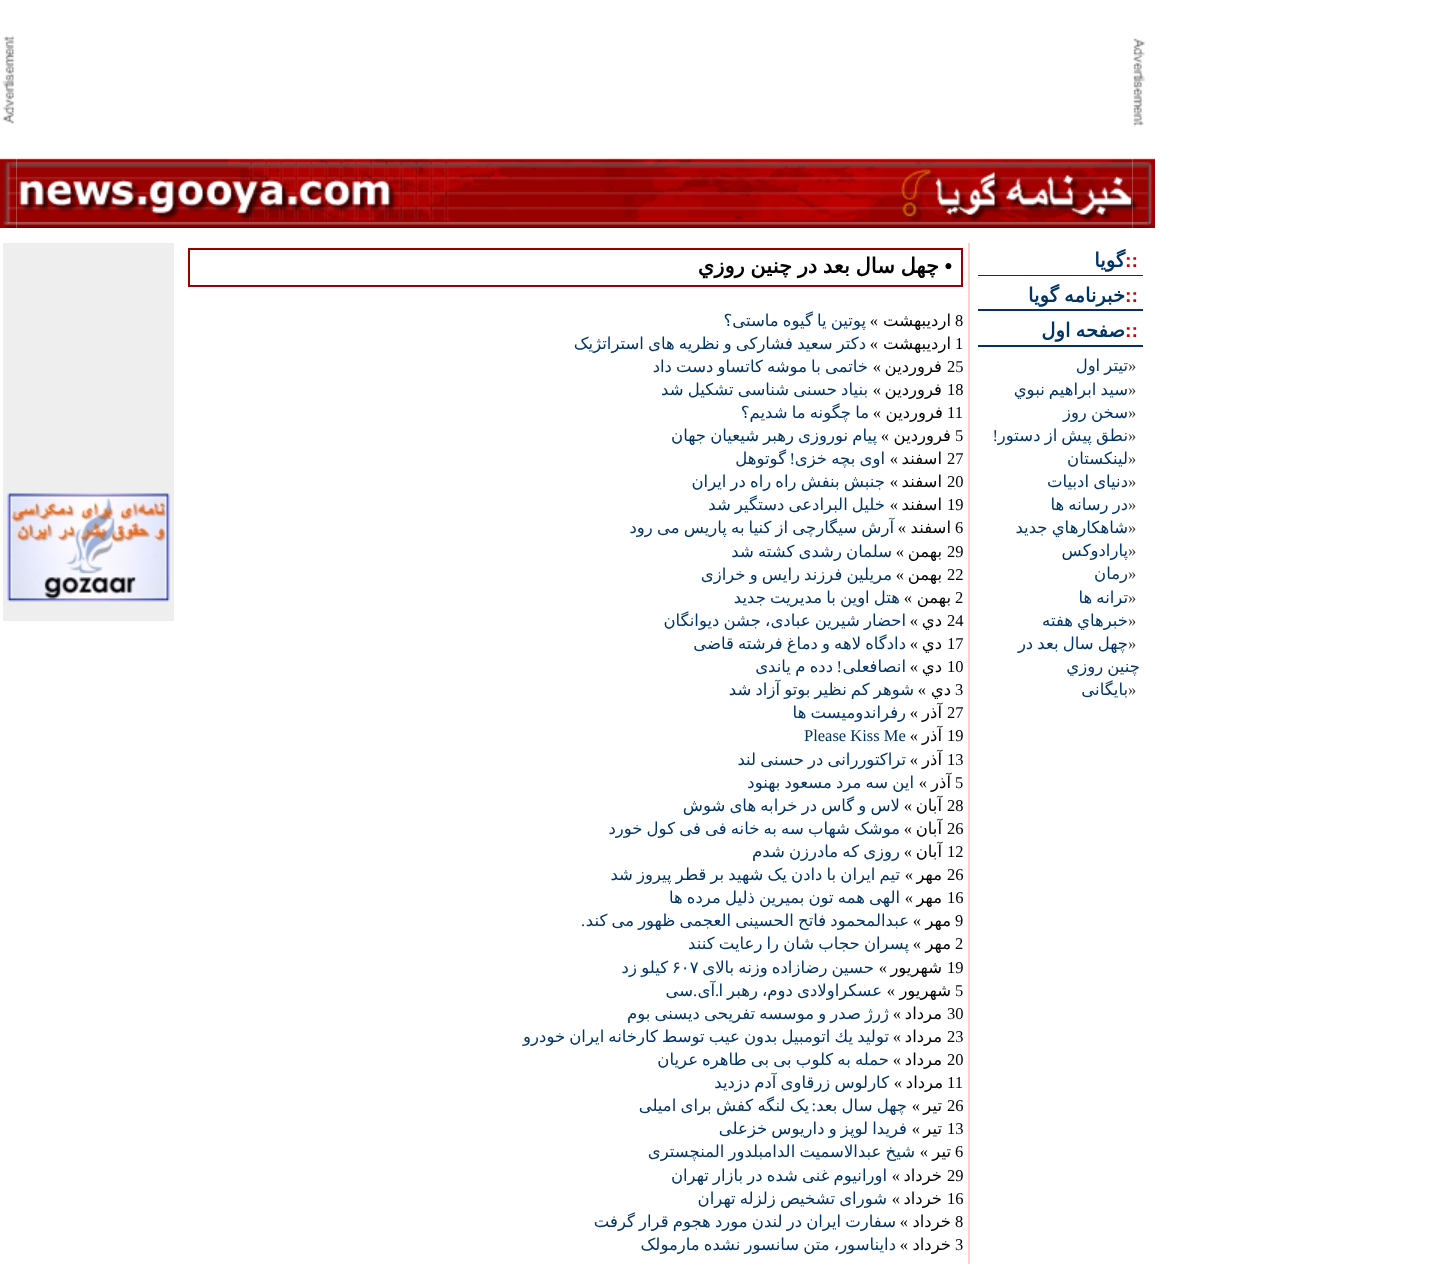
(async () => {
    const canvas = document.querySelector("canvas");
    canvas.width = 1449;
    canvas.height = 1264;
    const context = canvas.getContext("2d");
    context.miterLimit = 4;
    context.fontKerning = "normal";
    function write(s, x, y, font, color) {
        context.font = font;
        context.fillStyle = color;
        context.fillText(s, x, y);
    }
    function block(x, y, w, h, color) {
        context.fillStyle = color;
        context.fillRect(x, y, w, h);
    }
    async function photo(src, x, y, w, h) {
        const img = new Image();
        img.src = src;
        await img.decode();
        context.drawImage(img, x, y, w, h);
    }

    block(0, 0, 1449, 1264, "rgb(255, 255, 255)");
    await photo("media/1.png", 1133, 38, 12, 89);
    await photo("media/2.png", 2, 36, 12, 88);
    await photo("media/5.png", 0, 158, 17, 70);
    await photo("media/4.png", 16, 158, 1117, 70);
    await photo("media/3.png", 1132, 158, 23, 70);
    block(978, 275, 165, 1, "rgb(0, 51, 102)");
    write("::", 1125, 267, "bold 19.5px Liberation Sans", "rgb(204, 0, 0)");
    context.direction = "rtl";
    write("گويا", 1125, 267, "bold 19.5px DejaVu Sans", "rgb(0, 51, 102)");
    block(978, 309, 165, 2, "rgb(0, 51, 102)");
    context.direction = "ltr";
    write("::", 1125, 302, "bold 19.5px Liberation Sans", "rgb(204, 0, 0)");
    context.wordSpacing = "-1px";
    context.direction = "rtl";
    write("خبرنامه گويا", 1125, 302, "bold 19.5px DejaVu Sans", "rgb(0, 51, 102)");
    block(978, 345, 165, 2, "rgb(0, 51, 102)");
    context.wordSpacing = "0px";
    context.direction = "ltr";
    write("::", 1125, 337, "bold 19.5px Liberation Sans", "rgb(204, 0, 0)");
    context.wordSpacing = "-1px";
    context.direction = "rtl";
    write("صفحه اول", 1125, 337, "bold 19.5px DejaVu Sans", "rgb(0, 51, 102)");
    context.wordSpacing = "0px";
    context.direction = "ltr";
    write("»", 1128, 371, "16.5px Liberation Serif", "rgb(51, 51, 51)");
    context.wordSpacing = "-1.1px";
    context.direction = "rtl";
    write("تيتر اول", 1128, 371, "16.5px DejaVu Sans", "rgb(0, 51, 102)");
    context.wordSpacing = "0px";
    context.direction = "ltr";
    write("»", 1128, 395, "16.5px Liberation Serif", "rgb(51, 51, 51)");
    context.wordSpacing = "-1.1px";
    context.direction = "rtl";
    write("سيد ابراهيم نبوي", 1128, 395, "16.5px DejaVu Sans", "rgb(0, 51, 102)");
    context.wordSpacing = "0px";
    context.direction = "ltr";
    write("»", 1128, 418, "16.5px Liberation Serif", "rgb(51, 51, 51)");
    context.wordSpacing = "-1.1px";
    context.direction = "rtl";
    write("سخن روز", 1128, 418, "16.5px DejaVu Sans", "rgb(0, 51, 102)");
    context.wordSpacing = "0px";
    context.direction = "ltr";
    write("»", 1128, 441, "16.5px Liberation Serif", "rgb(51, 51, 51)");
    context.wordSpacing = "-1.1px";
    context.direction = "rtl";
    write("نطق پيش از دستور", 1128, 441, "16.5px DejaVu Sans", "rgb(0, 51, 102)");
    context.wordSpacing = "0px";
    write("!", 998, 441, "16.5px Liberation Serif", "rgb(0, 51, 102)");
    context.direction = "ltr";
    write("»", 1128, 464, "16.5px Liberation Serif", "rgb(51, 51, 51)");
    context.direction = "rtl";
    write("لينکستان", 1128, 464, "16.5px DejaVu Sans", "rgb(0, 51, 102)");
    context.direction = "ltr";
    write("»", 1128, 487, "16.5px Liberation Serif", "rgb(51, 51, 51)");
    context.wordSpacing = "-1.1px";
    context.direction = "rtl";
    write("دنيای ادبيات", 1128, 487, "16.5px DejaVu Sans", "rgb(0, 51, 102)");
    context.wordSpacing = "0px";
    context.direction = "ltr";
    write("»", 1128, 510, "16.5px Liberation Serif", "rgb(51, 51, 51)");
    context.wordSpacing = "-1.1px";
    context.direction = "rtl";
    write("در رسانه ها", 1128, 510, "16.5px DejaVu Sans", "rgb(0, 51, 102)");
    context.wordSpacing = "0px";
    context.direction = "ltr";
    write("»", 1128, 533, "16.5px Liberation Serif", "rgb(51, 51, 51)");
    context.wordSpacing = "-1.1px";
    context.direction = "rtl";
    write("شاهکارهاي جديد", 1128, 533, "16.5px DejaVu Sans", "rgb(0, 51, 102)");
    context.wordSpacing = "0px";
    context.direction = "ltr";
    write("»", 1128, 556, "16.5px Liberation Serif", "rgb(51, 51, 51)");
    context.direction = "rtl";
    write("پارادوکس", 1128, 556, "16.5px DejaVu Sans", "rgb(0, 51, 102)");
    context.direction = "ltr";
    write("»", 1128, 579, "16.5px Liberation Serif", "rgb(51, 51, 51)");
    context.direction = "rtl";
    write("رمان", 1128, 579, "16.5px DejaVu Sans", "rgb(0, 51, 102)");
    context.direction = "ltr";
    write("»", 1128, 603, "16.5px Liberation Serif", "rgb(51, 51, 51)");
    context.wordSpacing = "-1.1px";
    context.direction = "rtl";
    write("ترانه ها", 1128, 603, "16.5px DejaVu Sans", "rgb(0, 51, 102)");
    context.wordSpacing = "0px";
    context.direction = "ltr";
    write("»", 1128, 626, "16.5px Liberation Serif", "rgb(51, 51, 51)");
    context.wordSpacing = "-1.1px";
    context.direction = "rtl";
    write("خبرهاي هفته", 1128, 626, "16.5px DejaVu Sans", "rgb(0, 51, 102)");
    context.wordSpacing = "0px";
    context.direction = "ltr";
    write("»", 1128, 649, "16.5px Liberation Serif", "rgb(51, 51, 51)");
    context.wordSpacing = "-1.1px";
    context.direction = "rtl";
    write("چهل سال بعد در", 1128, 649, "16.5px DejaVu Sans", "rgb(0, 51, 102)");
    write("چنين روزي", 1140, 672, "16.5px DejaVu Sans", "rgb(0, 51, 102)");
    context.wordSpacing = "0px";
    context.direction = "ltr";
    write("»", 1128, 695, "16.5px Liberation Serif", "rgb(51, 51, 51)");
    context.direction = "rtl";
    write("بايگانی", 1128, 695, "16.5px DejaVu Sans", "rgb(0, 51, 102)");
    block(968, 243, 2, 1021, "rgb(250, 209, 207)");
    context.strokeStyle = "rgb(153, 0, 0)";
    context.lineWidth = 2;
    context.strokeRect(189, 249, 773, 37);
    write("•", 952, 273, "bold 21px Liberation Sans", "rgb(0, 0, 0)");
    context.wordSpacing = "-1px";
    write("چهل سال بعد در چنين روزي", 939, 273, "bold 21px DejaVu Sans", "rgb(0, 0, 0)");
    context.wordSpacing = "0px";
    context.direction = "ltr";
    write("8", 955, 326, "16.5px Liberation Serif", "rgb(0, 0, 0)");
    context.direction = "rtl";
    write("ارديبهشت", 951, 326, "16.5px DejaVu Sans", "rgb(0, 0, 0)");
    write("»", 878, 326, "16.5px Liberation Serif", "rgb(0, 0, 0)");
    context.wordSpacing = "-1.1px";
    write("پوتین یا گیوه ماستی؟", 866, 326, "16.5px DejaVu Sans", "rgb(0, 51, 102)");
    context.wordSpacing = "0px";
    context.direction = "ltr";
    write("1", 955, 349, "16.5px Liberation Serif", "rgb(0, 0, 0)");
    context.direction = "rtl";
    write("ارديبهشت", 951, 349, "16.5px DejaVu Sans", "rgb(0, 0, 0)");
    write("»", 878, 349, "16.5px Liberation Serif", "rgb(0, 0, 0)");
    context.wordSpacing = "-1.1px";
    write("دکتر سعید فشارکی و نظریه های استراتژیک", 866, 349, "16.5px DejaVu Sans", "rgb(0, 51, 102)");
    context.wordSpacing = "0px";
    context.direction = "ltr";
    write("25", 947, 372, "16.5px Liberation Serif", "rgb(0, 0, 0)");
    context.direction = "rtl";
    write("فروردين", 942, 372, "16.5px DejaVu Sans", "rgb(0, 0, 0)");
    write("»", 881, 372, "16.5px Liberation Serif", "rgb(0, 0, 0)");
    context.wordSpacing = "-1.1px";
    write("خاتمی با موشه کاتساو دست داد", 868, 372, "16.5px DejaVu Sans", "rgb(0, 51, 102)");
    context.wordSpacing = "0px";
    context.direction = "ltr";
    write("18", 947, 395, "16.5px Liberation Serif", "rgb(0, 0, 0)");
    context.direction = "rtl";
    write("فروردين", 942, 395, "16.5px DejaVu Sans", "rgb(0, 0, 0)");
    write("»", 881, 395, "16.5px Liberation Serif", "rgb(0, 0, 0)");
    context.wordSpacing = "-1.1px";
    write("بنیاد حسنی شناسی تشکیل شد", 868, 395, "16.5px DejaVu Sans", "rgb(0, 51, 102)");
    context.wordSpacing = "0px";
    context.direction = "ltr";
    write("11", 947, 418, "16.5px Liberation Serif", "rgb(0, 0, 0)");
    context.direction = "rtl";
    write("فروردين", 943, 418, "16.5px DejaVu Sans", "rgb(0, 0, 0)");
    write("»", 881, 418, "16.5px Liberation Serif", "rgb(0, 0, 0)");
    context.wordSpacing = "-1.1px";
    write("ما چگونه ما شدیم؟", 869, 418, "16.5px DejaVu Sans", "rgb(0, 51, 102)");
    context.wordSpacing = "0px";
    context.direction = "ltr";
    write("5", 955, 441, "16.5px Liberation Serif", "rgb(0, 0, 0)");
    context.direction = "rtl";
    write("فروردين", 951, 441, "16.5px DejaVu Sans", "rgb(0, 0, 0)");
    write("»", 889, 441, "16.5px Liberation Serif", "rgb(0, 0, 0)");
    context.wordSpacing = "-1.1px";
    write("پیام نوروزی رهبر شیعیان جهان", 877, 441, "16.5px DejaVu Sans", "rgb(0, 51, 102)");
    context.wordSpacing = "0px";
    context.direction = "ltr";
    write("27", 947, 464, "16.5px Liberation Serif", "rgb(0, 0, 0)");
    context.direction = "rtl";
    write("اسفند", 942, 464, "16.5px DejaVu Sans", "rgb(0, 0, 0)");
    write("»", 898, 464, "16.5px Liberation Serif", "rgb(0, 0, 0)");
    context.wordSpacing = "-1px";
    write("اوی بچه خزی", 885, 464, "16.5px DejaVu Sans", "rgb(0, 51, 102)");
    context.wordSpacing = "0px";
    write("!", 795, 464, "16.5px Liberation Serif", "rgb(0, 51, 102)");
    write("گوتوهل", 786, 464, "16.5px DejaVu Sans", "rgb(0, 51, 102)");
    context.direction = "ltr";
    write("20", 947, 487, "16.5px Liberation Serif", "rgb(0, 0, 0)");
    context.direction = "rtl";
    write("اسفند", 942, 487, "16.5px DejaVu Sans", "rgb(0, 0, 0)");
    write("»", 898, 487, "16.5px Liberation Serif", "rgb(0, 0, 0)");
    context.wordSpacing = "-1.1px";
    write("جنبش بنفش راه راه در ایران", 885, 487, "16.5px DejaVu Sans", "rgb(0, 51, 102)");
    context.wordSpacing = "0px";
    context.direction = "ltr";
    write("19", 947, 510, "16.5px Liberation Serif", "rgb(0, 0, 0)");
    context.direction = "rtl";
    write("اسفند", 942, 510, "16.5px DejaVu Sans", "rgb(0, 0, 0)");
    write("»", 898, 510, "16.5px Liberation Serif", "rgb(0, 0, 0)");
    context.wordSpacing = "-1.1px";
    write("خلیل البرادعی دستگیر شد", 885, 510, "16.5px DejaVu Sans", "rgb(0, 51, 102)");
    context.wordSpacing = "0px";
    context.direction = "ltr";
    write("6", 955, 533, "16.5px Liberation Serif", "rgb(0, 0, 0)");
    context.direction = "rtl";
    write("اسفند", 951, 533, "16.5px DejaVu Sans", "rgb(0, 0, 0)");
    write("»", 906, 533, "16.5px Liberation Serif", "rgb(0, 0, 0)");
    context.wordSpacing = "-1.1px";
    write("آرش سیگارچی از کنیا به پاریس می رود", 894, 533, "16.5px DejaVu Sans", "rgb(0, 51, 102)");
    context.wordSpacing = "0px";
    context.direction = "ltr";
    write("29", 947, 557, "16.5px Liberation Serif", "rgb(0, 0, 0)");
    context.direction = "rtl";
    write("بهمن", 942, 557, "16.5px DejaVu Sans", "rgb(0, 0, 0)");
    write("»", 904, 557, "16.5px Liberation Serif", "rgb(0, 0, 0)");
    context.wordSpacing = "-1.1px";
    write("سلمان رشدی کشته شد", 892, 557, "16.5px DejaVu Sans", "rgb(0, 51, 102)");
    context.wordSpacing = "0px";
    context.direction = "ltr";
    write("22", 947, 580, "16.5px Liberation Serif", "rgb(0, 0, 0)");
    context.direction = "rtl";
    write("بهمن", 942, 580, "16.5px DejaVu Sans", "rgb(0, 0, 0)");
    write("»", 904, 580, "16.5px Liberation Serif", "rgb(0, 0, 0)");
    context.wordSpacing = "-1.1px";
    write("مریلین فرزند رایس و خرازی", 892, 580, "16.5px DejaVu Sans", "rgb(0, 51, 102)");
    context.wordSpacing = "0px";
    context.direction = "ltr";
    write("2", 955, 603, "16.5px Liberation Serif", "rgb(0, 0, 0)");
    context.direction = "rtl";
    write("بهمن", 951, 603, "16.5px DejaVu Sans", "rgb(0, 0, 0)");
    write("»", 912, 603, "16.5px Liberation Serif", "rgb(0, 0, 0)");
    context.wordSpacing = "-1.1px";
    write("هتل اوین با مدیریت جدید", 900, 603, "16.5px DejaVu Sans", "rgb(0, 51, 102)");
    context.wordSpacing = "0px";
    context.direction = "ltr";
    write("24", 947, 626, "16.5px Liberation Serif", "rgb(0, 0, 0)");
    context.direction = "rtl";
    write("دي", 942, 626, "16.5px DejaVu Sans", "rgb(0, 0, 0)");
    write("»", 918, 626, "16.5px Liberation Serif", "rgb(0, 0, 0)");
    context.wordSpacing = "-1.1px";
    write("احضار شیرین عبادی، جشن دیوانگان", 906, 626, "16.5px DejaVu Sans", "rgb(0, 51, 102)");
    context.wordSpacing = "0px";
    context.direction = "ltr";
    write("17", 947, 649, "16.5px Liberation Serif", "rgb(0, 0, 0)");
    context.direction = "rtl";
    write("دي", 942, 649, "16.5px DejaVu Sans", "rgb(0, 0, 0)");
    write("»", 918, 649, "16.5px Liberation Serif", "rgb(0, 0, 0)");
    context.wordSpacing = "-1.1px";
    write("دادگاه لاهه و دماغ فرشته قاضی", 906, 649, "16.5px DejaVu Sans", "rgb(0, 51, 102)");
    context.wordSpacing = "0px";
    context.direction = "ltr";
    write("10", 947, 672, "16.5px Liberation Serif", "rgb(0, 0, 0)");
    context.direction = "rtl";
    write("دي", 942, 672, "16.5px DejaVu Sans", "rgb(0, 0, 0)");
    write("»", 918, 672, "16.5px Liberation Serif", "rgb(0, 0, 0)");
    write("انصافعلی", 906, 672, "16.5px DejaVu Sans", "rgb(0, 51, 102)");
    write("!", 842, 672, "16.5px Liberation Serif", "rgb(0, 51, 102)");
    context.wordSpacing = "-1px";
    write("دده م یاندی", 833, 672, "16.5px DejaVu Sans", "rgb(0, 51, 102)");
    context.wordSpacing = "0px";
    context.direction = "ltr";
    write("3", 955, 695, "16.5px Liberation Serif", "rgb(0, 0, 0)");
    context.direction = "rtl";
    write("دي", 951, 695, "16.5px DejaVu Sans", "rgb(0, 0, 0)");
    write("»", 926, 695, "16.5px Liberation Serif", "rgb(0, 0, 0)");
    context.wordSpacing = "-1.1px";
    write("شوهر کم نظیر بوتو آزاد شد", 914, 695, "16.5px DejaVu Sans", "rgb(0, 51, 102)");
    context.wordSpacing = "0px";
    context.direction = "ltr";
    write("27", 947, 718, "16.5px Liberation Serif", "rgb(0, 0, 0)");
    context.direction = "rtl";
    write("آذر", 942, 718, "16.5px DejaVu Sans", "rgb(0, 0, 0)");
    write("»", 918, 718, "16.5px Liberation Serif", "rgb(0, 0, 0)");
    context.wordSpacing = "-1.1px";
    write("رفراندومیست ها", 906, 718, "16.5px DejaVu Sans", "rgb(0, 51, 102)");
    context.wordSpacing = "0px";
    context.direction = "ltr";
    write("19", 947, 741, "16.5px Liberation Serif", "rgb(0, 0, 0)");
    context.direction = "rtl";
    write("آذر", 942, 741, "16.5px DejaVu Sans", "rgb(0, 0, 0)");
    write("»", 918, 741, "16.5px Liberation Serif", "rgb(0, 0, 0)");
    context.direction = "ltr";
    write("Please Kiss Me", 804, 741, "16.5px Liberation Serif", "rgb(0, 51, 102)");
    write("13", 947, 765, "16.5px Liberation Serif", "rgb(0, 0, 0)");
    context.direction = "rtl";
    write("آذر", 942, 765, "16.5px DejaVu Sans", "rgb(0, 0, 0)");
    write("»", 918, 765, "16.5px Liberation Serif", "rgb(0, 0, 0)");
    context.wordSpacing = "-1.1px";
    write("تراکتوررانی در حسنی لند", 906, 765, "16.5px DejaVu Sans", "rgb(0, 51, 102)");
    context.wordSpacing = "0px";
    context.direction = "ltr";
    write("5", 955, 788, "16.5px Liberation Serif", "rgb(0, 0, 0)");
    context.direction = "rtl";
    write("آذر", 951, 788, "16.5px DejaVu Sans", "rgb(0, 0, 0)");
    write("»", 927, 788, "16.5px Liberation Serif", "rgb(0, 0, 0)");
    context.wordSpacing = "-1.1px";
    write("این سه مرد مسعود بهنود", 914, 788, "16.5px DejaVu Sans", "rgb(0, 51, 102)");
    context.wordSpacing = "0px";
    context.direction = "ltr";
    write("28", 947, 811, "16.5px Liberation Serif", "rgb(0, 0, 0)");
    context.direction = "rtl";
    write("آبان", 942, 811, "16.5px DejaVu Sans", "rgb(0, 0, 0)");
    write("»", 912, 811, "16.5px Liberation Serif", "rgb(0, 0, 0)");
    context.wordSpacing = "-1.1px";
    write("لاس و گاس در خرابه های شوش", 900, 811, "16.5px DejaVu Sans", "rgb(0, 51, 102)");
    context.wordSpacing = "0px";
    context.direction = "ltr";
    write("26", 947, 834, "16.5px Liberation Serif", "rgb(0, 0, 0)");
    context.direction = "rtl";
    write("آبان", 942, 834, "16.5px DejaVu Sans", "rgb(0, 0, 0)");
    write("»", 912, 834, "16.5px Liberation Serif", "rgb(0, 0, 0)");
    context.wordSpacing = "-1.1px";
    write("موشک شهاب سه به خانه فی فی کول خورد", 900, 834, "16.5px DejaVu Sans", "rgb(0, 51, 102)");
    context.wordSpacing = "0px";
    context.direction = "ltr";
    write("12", 947, 857, "16.5px Liberation Serif", "rgb(0, 0, 0)");
    context.direction = "rtl";
    write("آبان", 942, 857, "16.5px DejaVu Sans", "rgb(0, 0, 0)");
    write("»", 912, 857, "16.5px Liberation Serif", "rgb(0, 0, 0)");
    context.wordSpacing = "-1.1px";
    write("روزی که مادرزن شدم", 900, 857, "16.5px DejaVu Sans", "rgb(0, 51, 102)");
    context.wordSpacing = "0px";
    context.direction = "ltr";
    write("26", 947, 880, "16.5px Liberation Serif", "rgb(0, 0, 0)");
    context.direction = "rtl";
    write("مهر", 942, 880, "16.5px DejaVu Sans", "rgb(0, 0, 0)");
    write("»", 913, 880, "16.5px Liberation Serif", "rgb(0, 0, 0)");
    context.wordSpacing = "-1.1px";
    write("تیم ایران با دادن یک شهید بر قطر پیروز شد", 900, 880, "16.5px DejaVu Sans", "rgb(0, 51, 102)");
    context.wordSpacing = "0px";
    context.direction = "ltr";
    write("16", 947, 903, "16.5px Liberation Serif", "rgb(0, 0, 0)");
    context.direction = "rtl";
    write("مهر", 942, 903, "16.5px DejaVu Sans", "rgb(0, 0, 0)");
    write("»", 913, 903, "16.5px Liberation Serif", "rgb(0, 0, 0)");
    context.wordSpacing = "-1.1px";
    write("الهی همه تون بمیرین ذلیل مرده ها", 900, 903, "16.5px DejaVu Sans", "rgb(0, 51, 102)");
    context.wordSpacing = "0px";
    context.direction = "ltr";
    write("9", 955, 926, "16.5px Liberation Serif", "rgb(0, 0, 0)");
    context.direction = "rtl";
    write("مهر", 951, 926, "16.5px DejaVu Sans", "rgb(0, 0, 0)");
    write("»", 921, 926, "16.5px Liberation Serif", "rgb(0, 0, 0)");
    context.wordSpacing = "-1.1px";
    write("عبدالمحمود فاتح الحسینی العجمی ظهور می کند", 909, 926, "16.5px DejaVu Sans", "rgb(0, 51, 102)");
    context.wordSpacing = "0px";
    write(".", 585, 926, "16.5px Liberation Serif", "rgb(0, 51, 102)");
    context.direction = "ltr";
    write("2", 955, 949, "16.5px Liberation Serif", "rgb(0, 0, 0)");
    context.direction = "rtl";
    write("مهر", 951, 949, "16.5px DejaVu Sans", "rgb(0, 0, 0)");
    write("»", 921, 949, "16.5px Liberation Serif", "rgb(0, 0, 0)");
    context.wordSpacing = "-1.1px";
    write("پسران حجاب شان را رعایت کنند", 909, 949, "16.5px DejaVu Sans", "rgb(0, 51, 102)");
    context.wordSpacing = "0px";
    context.direction = "ltr";
    write("19", 947, 973, "16.5px Liberation Serif", "rgb(0, 0, 0)");
    context.direction = "rtl";
    write("شهريور", 942, 973, "16.5px DejaVu Sans", "rgb(0, 0, 0)");
    write("»", 887, 973, "16.5px Liberation Serif", "rgb(0, 0, 0)");
    context.wordSpacing = "-1.1px";
    write("حسين رضازاده وزنه بالاى", 874, 973, "16.5px DejaVu Sans", "rgb(0, 51, 102)");
    context.wordSpacing = "0px";
    context.direction = "ltr";
    write("۶۰۷", 672, 973, "16.5px DejaVu Sans", "rgb(0, 51, 102)");
    context.wordSpacing = "-1px";
    context.direction = "rtl";
    write("كيلو زد", 668, 973, "16.5px DejaVu Sans", "rgb(0, 51, 102)");
    context.wordSpacing = "0px";
    context.direction = "ltr";
    write("5", 955, 996, "16.5px Liberation Serif", "rgb(0, 0, 0)");
    context.direction = "rtl";
    write("شهريور", 951, 996, "16.5px DejaVu Sans", "rgb(0, 0, 0)");
    write("»", 895, 996, "16.5px Liberation Serif", "rgb(0, 0, 0)");
    context.wordSpacing = "-1.1px";
    write("عسكراولادى دوم، رهبر", 882, 996, "16.5px DejaVu Sans", "rgb(0, 51, 102)");
    context.wordSpacing = "0px";
    write("ا", 723, 996, "16.5px DejaVu Sans", "rgb(0, 51, 102)");
    write("آى", 715, 996, "16.5px DejaVu Sans", "rgb(0, 51, 102)");
    write(".", 719, 996, "16.5px Liberation Serif", "rgb(0, 51, 102)");
    write(".", 697, 996, "16.5px Liberation Serif", "rgb(0, 51, 102)");
    write("سى", 693, 996, "16.5px DejaVu Sans", "rgb(0, 51, 102)");
    context.direction = "ltr";
    write("30", 947, 1019, "16.5px Liberation Serif", "rgb(0, 0, 0)");
    context.direction = "rtl";
    write("مرداد", 942, 1019, "16.5px DejaVu Sans", "rgb(0, 0, 0)");
    write("»", 901, 1019, "16.5px Liberation Serif", "rgb(0, 0, 0)");
    context.wordSpacing = "-1.1px";
    write("ژرژ صدر و موسسه تفريحى ديسنى بوم", 889, 1019, "16.5px DejaVu Sans", "rgb(0, 51, 102)");
    context.wordSpacing = "0px";
    context.direction = "ltr";
    write("23", 947, 1042, "16.5px Liberation Serif", "rgb(0, 0, 0)");
    context.direction = "rtl";
    write("مرداد", 942, 1042, "16.5px DejaVu Sans", "rgb(0, 0, 0)");
    write("»", 901, 1042, "16.5px Liberation Serif", "rgb(0, 0, 0)");
    context.wordSpacing = "-1.1px";
    write("توليد يك اتومبيل بدون عيب توسط كارخانه ايران خودرو", 889, 1042, "16.5px DejaVu Sans", "rgb(0, 51, 102)");
    context.wordSpacing = "0px";
    context.direction = "ltr";
    write("20", 947, 1065, "16.5px Liberation Serif", "rgb(0, 0, 0)");
    context.direction = "rtl";
    write("مرداد", 942, 1065, "16.5px DejaVu Sans", "rgb(0, 0, 0)");
    write("»", 901, 1065, "16.5px Liberation Serif", "rgb(0, 0, 0)");
    context.wordSpacing = "-1.1px";
    write("حمله به کلوب بی بی طاهره عریان", 889, 1065, "16.5px DejaVu Sans", "rgb(0, 51, 102)");
    context.wordSpacing = "0px";
    context.direction = "ltr";
    write("11", 947, 1088, "16.5px Liberation Serif", "rgb(0, 0, 0)");
    context.direction = "rtl";
    write("مرداد", 943, 1088, "16.5px DejaVu Sans", "rgb(0, 0, 0)");
    write("»", 902, 1088, "16.5px Liberation Serif", "rgb(0, 0, 0)");
    context.wordSpacing = "-1.1px";
    write("کارلوس زرقاوی آدم دزدید", 889, 1088, "16.5px DejaVu Sans", "rgb(0, 51, 102)");
    context.wordSpacing = "0px";
    context.direction = "ltr";
    write("26", 947, 1111, "16.5px Liberation Serif", "rgb(0, 0, 0)");
    context.direction = "rtl";
    write("تير", 942, 1111, "16.5px DejaVu Sans", "rgb(0, 0, 0)");
    write("»", 920, 1111, "16.5px Liberation Serif", "rgb(0, 0, 0)");
    context.wordSpacing = "-1px";
    write("چهل سال بعد", 907, 1111, "16.5px DejaVu Sans", "rgb(0, 51, 102)");
    context.wordSpacing = "0px";
    write(":", 816, 1111, "16.5px Liberation Serif", "rgb(0, 51, 102)");
    context.wordSpacing = "-1px";
    write("یک لنگه کفش برای امیلی", 809, 1111, "16.5px DejaVu Sans", "rgb(0, 51, 102)");
    context.wordSpacing = "0px";
    context.direction = "ltr";
    write("13", 947, 1134, "16.5px Liberation Serif", "rgb(0, 0, 0)");
    context.direction = "rtl";
    write("تير", 942, 1134, "16.5px DejaVu Sans", "rgb(0, 0, 0)");
    write("»", 920, 1134, "16.5px Liberation Serif", "rgb(0, 0, 0)");
    context.wordSpacing = "-1.1px";
    write("فریدا لوپز و داریوس خزعلی", 907, 1134, "16.5px DejaVu Sans", "rgb(0, 51, 102)");
    context.wordSpacing = "0px";
    context.direction = "ltr";
    write("6", 955, 1157, "16.5px Liberation Serif", "rgb(0, 0, 0)");
    context.direction = "rtl";
    write("تير", 951, 1157, "16.5px DejaVu Sans", "rgb(0, 0, 0)");
    write("»", 928, 1157, "16.5px Liberation Serif", "rgb(0, 0, 0)");
    context.wordSpacing = "-1.1px";
    write("شیخ عبدالاسمیت الدامبلدور المنچستری", 915, 1157, "16.5px DejaVu Sans", "rgb(0, 51, 102)");
    context.wordSpacing = "0px";
    context.direction = "ltr";
    write("29", 947, 1181, "16.5px Liberation Serif", "rgb(0, 0, 0)");
    context.direction = "rtl";
    write("خرداد", 942, 1181, "16.5px DejaVu Sans", "rgb(0, 0, 0)");
    write("»", 900, 1181, "16.5px Liberation Serif", "rgb(0, 0, 0)");
    context.wordSpacing = "-1.1px";
    write("اورانیوم غنی شده در بازار تهران", 887, 1181, "16.5px DejaVu Sans", "rgb(0, 51, 102)");
    context.wordSpacing = "0px";
    context.direction = "ltr";
    write("16", 947, 1204, "16.5px Liberation Serif", "rgb(0, 0, 0)");
    context.direction = "rtl";
    write("خرداد", 942, 1204, "16.5px DejaVu Sans", "rgb(0, 0, 0)");
    write("»", 900, 1204, "16.5px Liberation Serif", "rgb(0, 0, 0)");
    context.wordSpacing = "-1.1px";
    write("شورای تشخیص زلزله تهران", 887, 1204, "16.5px DejaVu Sans", "rgb(0, 51, 102)");
    context.wordSpacing = "0px";
    context.direction = "ltr";
    write("8", 955, 1227, "16.5px Liberation Serif", "rgb(0, 0, 0)");
    context.direction = "rtl";
    write("خرداد", 951, 1227, "16.5px DejaVu Sans", "rgb(0, 0, 0)");
    write("»", 908, 1227, "16.5px Liberation Serif", "rgb(0, 0, 0)");
    context.wordSpacing = "-1.1px";
    write("سفارت ایران در لندن مورد هجوم قرار گرفت", 896, 1227, "16.5px DejaVu Sans", "rgb(0, 51, 102)");
    context.wordSpacing = "0px";
    context.direction = "ltr";
    write("3", 955, 1250, "16.5px Liberation Serif", "rgb(0, 0, 0)");
    context.direction = "rtl";
    write("خرداد", 951, 1250, "16.5px DejaVu Sans", "rgb(0, 0, 0)");
    write("»", 908, 1250, "16.5px Liberation Serif", "rgb(0, 0, 0)");
    context.wordSpacing = "-1.1px";
    write("دایناسور، متن سانسور نشده مارمولک", 896, 1250, "16.5px DejaVu Sans", "rgb(0, 51, 102)");
    block(3, 243, 171, 378, "rgb(238, 238, 238)");
    await photo("media/6.png", 7, 493, 163, 109);
})();
